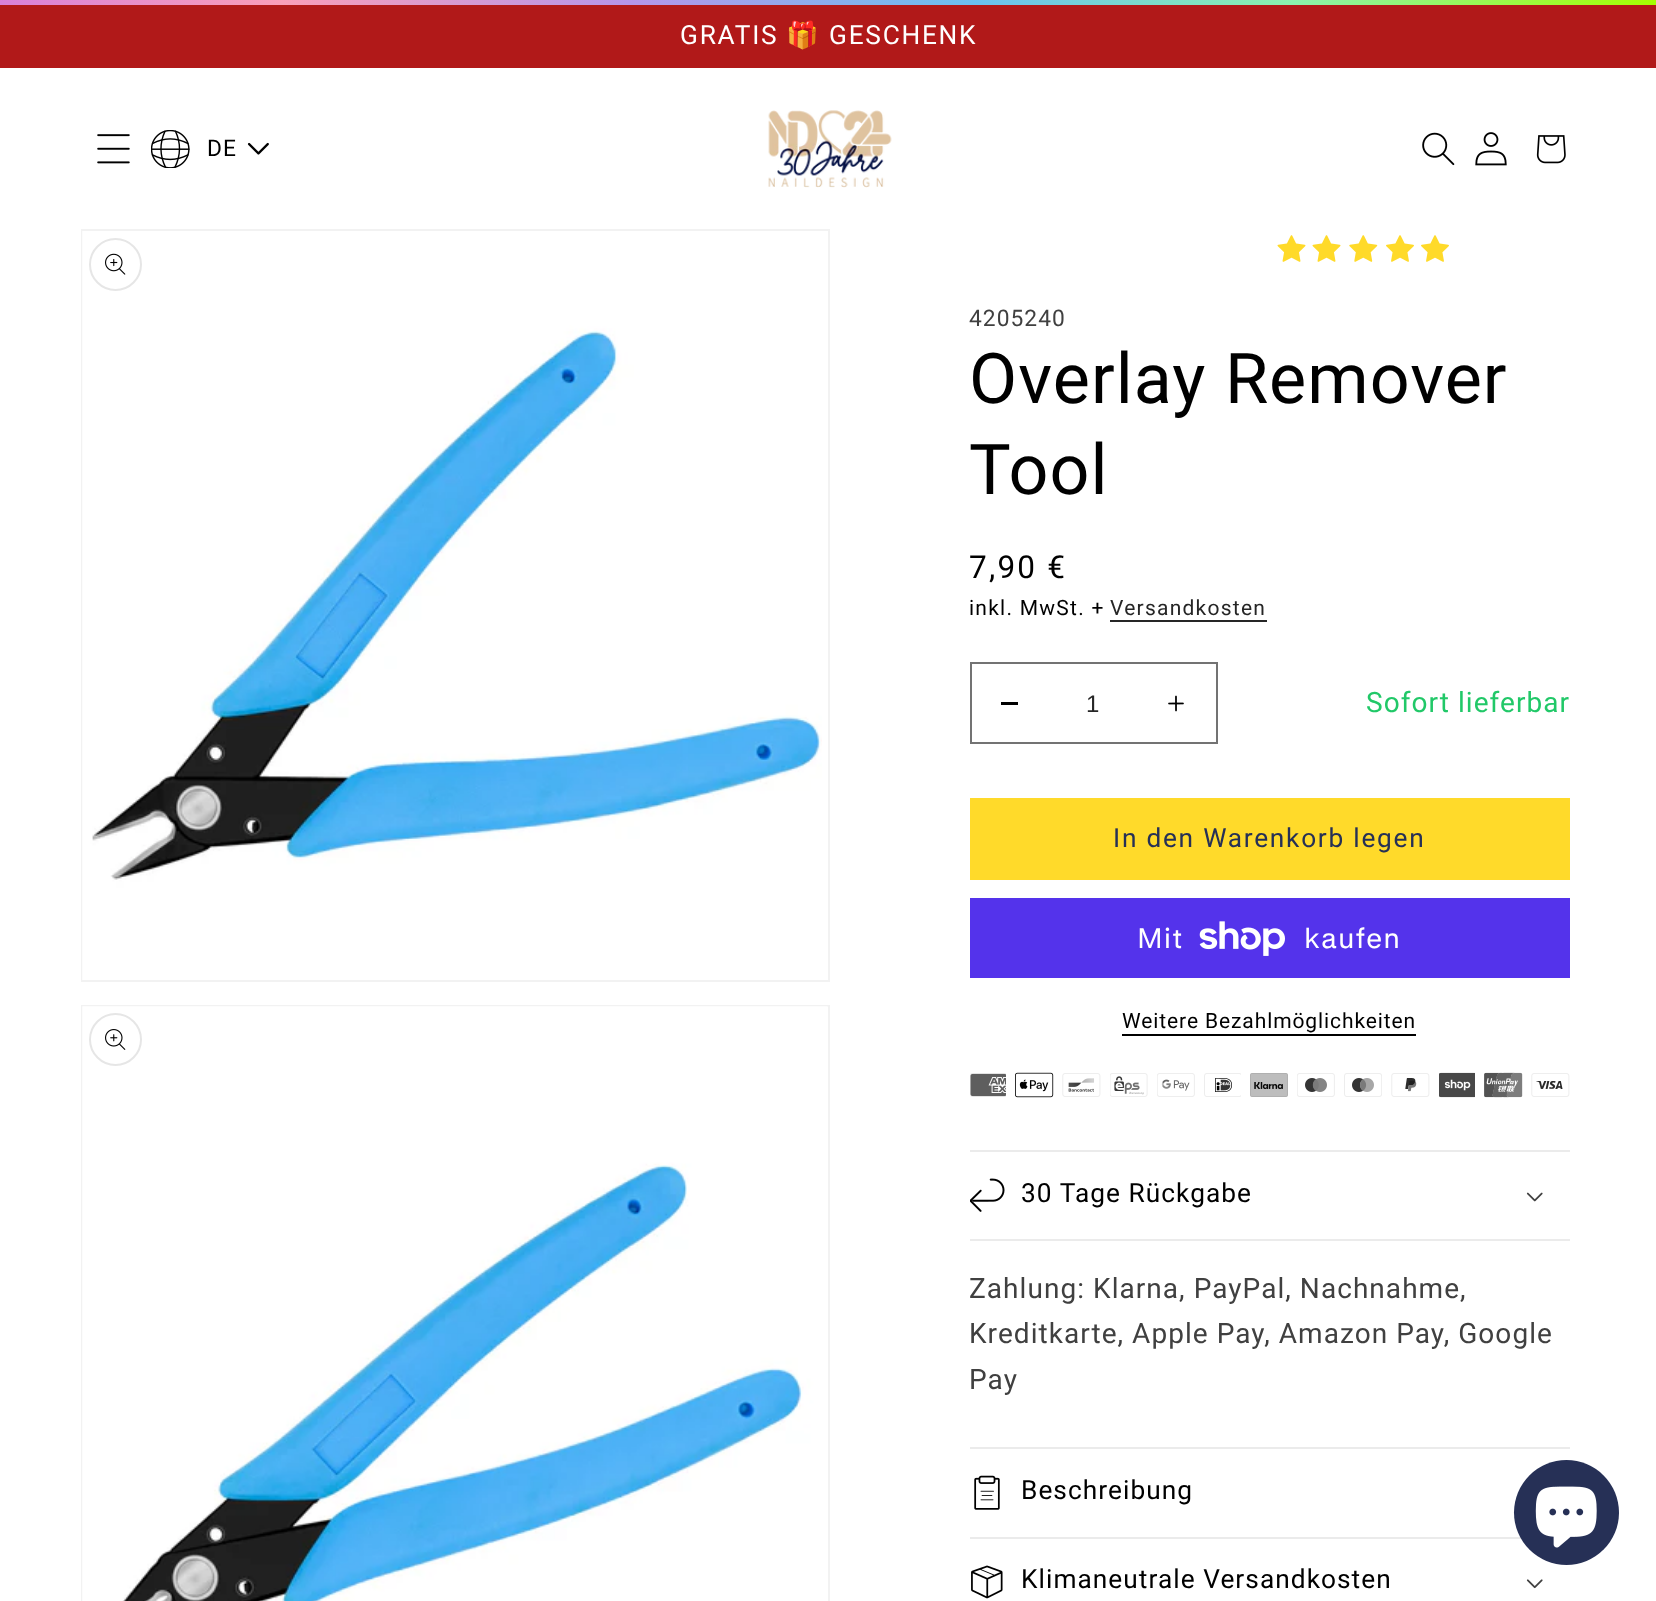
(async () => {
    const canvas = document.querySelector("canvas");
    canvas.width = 1656;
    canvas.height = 1601;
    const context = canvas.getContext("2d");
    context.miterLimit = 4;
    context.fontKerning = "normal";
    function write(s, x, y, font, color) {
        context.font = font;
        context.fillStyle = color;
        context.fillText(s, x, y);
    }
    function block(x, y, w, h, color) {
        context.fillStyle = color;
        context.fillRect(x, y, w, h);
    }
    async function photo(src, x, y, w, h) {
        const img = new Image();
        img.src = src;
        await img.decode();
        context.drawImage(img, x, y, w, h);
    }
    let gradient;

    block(0, 0, 1656, 1601, "rgb(255, 255, 255)");
    gradient = context.createLinearGradient(0, 2.6, 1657, 2.6);
    gradient.addColorStop(0, "rgb(216, 129, 218)");
    gradient.addColorStop(0.17, "rgb(249, 159, 185)");
    gradient.addColorStop(0.38, "rgb(181, 150, 234)");
    gradient.addColorStop(0.59, "rgb(107, 193, 239)");
    gradient.addColorStop(0.78, "rgb(138, 242, 174)");
    gradient.addColorStop(1, "rgb(165, 255, 0)");
    context.fillStyle = gradient;
    context.fillRect(0, 0, 1656, 5);
    block(0, 5, 1656, 63, "rgb(177, 25, 25)");
    context.letterSpacing = "1.75px";
    write("GRATIS", 680, 44, "26.25px Roboto", "rgb(255, 255, 255)");
    write("🎁", 786, 44, "26.25px Noto Color Emoji", "rgb(255, 255, 255)");
    write("GESCHENK", 829, 44, "26.25px Roboto", "rgb(255, 255, 255)");
    await photo("media/1.png", 97, 134, 33, 30);
    await photo("media/2.png", 151, 130, 39, 38);
    context.letterSpacing = "1px";
    write("DE", 207, 156, "22.75px Roboto", "rgb(0, 0, 0)");
    await photo("media/3.png", 247, 142, 22, 13);
    await photo("media/4.png", 768, 110, 124, 78);
    await photo("media/5.png", 1422, 132, 33, 34);
    await photo("media/6.png", 1475, 132, 32, 34);
    await photo("media/7.png", 1536, 135, 30, 29);
    context.strokeStyle = "rgb(242, 242, 242)";
    context.lineWidth = 2;
    context.strokeRect(82, 230, 747, 751);
    await photo("media/8.png", 82, 231, 740, 749);
    context.beginPath();
    context.arc(115.5, 264.5, 25.5, 0, Math.PI * 2);
    context.strokeStyle = "rgb(230, 230, 230)";
    context.stroke();
    await photo("media/9.png", 105, 253, 21, 22);
    context.strokeStyle = "rgb(242, 242, 242)";
    context.strokeRect(82, 1006, 747, 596);
    await photo("media/10.png", 82, 1006, 746, 595);
    context.beginPath();
    context.arc(115.5, 1039.5, 25.5, 0, Math.PI * 2);
    context.strokeStyle = "rgb(230, 230, 230)";
    context.stroke();
    await photo("media/11.png", 105, 1029, 21, 21);
    await photo("media/12.png", 1277, 235, 29, 27);
    await photo("media/12.png", 1312, 235, 29, 27);
    await photo("media/13.png", 1349, 235, 29, 27);
    await photo("media/14.png", 1386, 235, 28, 27);
    await photo("media/14.png", 1421, 235, 28, 27);
    context.letterSpacing = "1.05px";
    write("4205240", 969, 326, "22.75px Roboto", "rgb(64, 64, 64)");
    write("Overlay Remover", 969, 403, "70px Roboto", "rgb(0, 0, 0)");
    write("Tool", 969, 494, "70px Roboto", "rgb(0, 0, 0)");
    context.letterSpacing = "2.25px";
    write("7,90 €", 969, 578, "31.5px Roboto", "rgb(0, 0, 0)");
    context.letterSpacing = "1.25px";
    write("inkl. MwSt. +", 969, 615, "21px Roboto", "rgb(0, 0, 0)");
    write("Versandkosten", 1110, 615, "21px Roboto", "rgb(38, 38, 38)");
    block(1110, 620, 157, 2, "rgb(38, 38, 38)");
    block(1001, 702, 17, 3, "rgb(0, 0, 0)");
    await photo("media/15.png", 1168, 695, 16, 17);
    context.strokeStyle = "rgb(115, 115, 115)";
    context.strokeRect(971, 663, 246, 80);
    context.letterSpacing = "0px";
    write("1", 1086, 712, "24px Liberation Sans", "rgb(38, 38, 38)");
    context.letterSpacing = "1.05px";
    write("Sofort lieferbar", 1366, 712, "28px Roboto", "rgb(33, 200, 104)");
    block(970, 798, 600, 82, "rgb(255, 218, 42)");
    context.letterSpacing = "1.75px";
    write("In den Warenkorb legen", 1113, 847, "26.25px Roboto", "rgb(38, 48, 86)");
    block(970, 898, 600, 80, "rgb(84, 51, 235)");
    context.letterSpacing = "1.05px";
    write("Mit", 1137, 948, "28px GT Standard", "rgb(255, 255, 255)");
    await photo("media/16.png", 1199, 921, 86, 35);
    write("kaufen", 1304, 948, "28px GT Standard", "rgb(255, 255, 255)");
    context.letterSpacing = "0.9px";
    write("Weitere Bezahlmöglichkeiten", 1122, 1028, "21px Roboto", "rgb(0, 0, 0)");
    block(1122, 1034, 294, 2, "rgb(0, 0, 0)");
    await photo("media/17.png", 970, 1073, 36, 24);
    await photo("media/18.png", 1015, 1072, 39, 26);
    await photo("media/19.png", 1062, 1073, 39, 24);
    await photo("media/20.png", 1110, 1073, 38, 24);
    await photo("media/21.png", 1157, 1073, 38, 24);
    await photo("media/22.png", 1204, 1073, 37, 24);
    await photo("media/23.png", 1250, 1073, 38, 24);
    await photo("media/24.png", 1297, 1073, 38, 24);
    await photo("media/25.png", 1344, 1073, 38, 24);
    await photo("media/26.png", 1391, 1073, 39, 24);
    await photo("media/27.png", 1439, 1072, 36, 26);
    await photo("media/28.png", 1484, 1072, 39, 26);
    await photo("media/29.png", 1531, 1073, 39, 24);
    block(970, 1150, 600, 2, "rgb(235, 235, 235)");
    block(970, 1239, 600, 2, "rgb(235, 235, 235)");
    await photo("media/30.png", 970, 1178, 35, 34);
    context.letterSpacing = "1.05px";
    write("30 Tage Rückgabe", 1021, 1202, "26.25px Roboto", "rgb(0, 0, 0)");
    await photo("media/31.png", 1526, 1192, 17, 10);
    write("Zahlung: Klarna, PayPal, Nachnahme,", 969, 1298, "28px Roboto", "rgb(64, 64, 64)");
    write("Kreditkarte, Apple Pay, Amazon Pay, Google", 969, 1343, "28px Roboto", "rgb(64, 64, 64)");
    write("Pay", 969, 1389, "28px Roboto", "rgb(64, 64, 64)");
    block(970, 1447, 600, 2, "rgb(235, 235, 235)");
    block(970, 1537, 552, 2, "rgb(235, 235, 235)");
    await photo("media/32.png", 974, 1475, 26, 35);
    write("Beschreibung", 1021, 1499, "26.25px Roboto", "rgb(0, 0, 0)");
    await photo("media/33.png", 971, 1565, 32, 34);
    write("Klimaneutrale Versandkosten", 1021, 1588, "26.25px Roboto", "rgb(0, 0, 0)");
    await photo("media/34.png", 1526, 1579, 17, 10);
    context.fillStyle = "rgb(38, 48, 86)";
    context.beginPath();
    context.arc(1566.5, 1512.5, 52.5, 0, Math.PI * 2);
    context.fill();
    await photo("media/35.png", 1535, 1486, 62, 62);
})();
